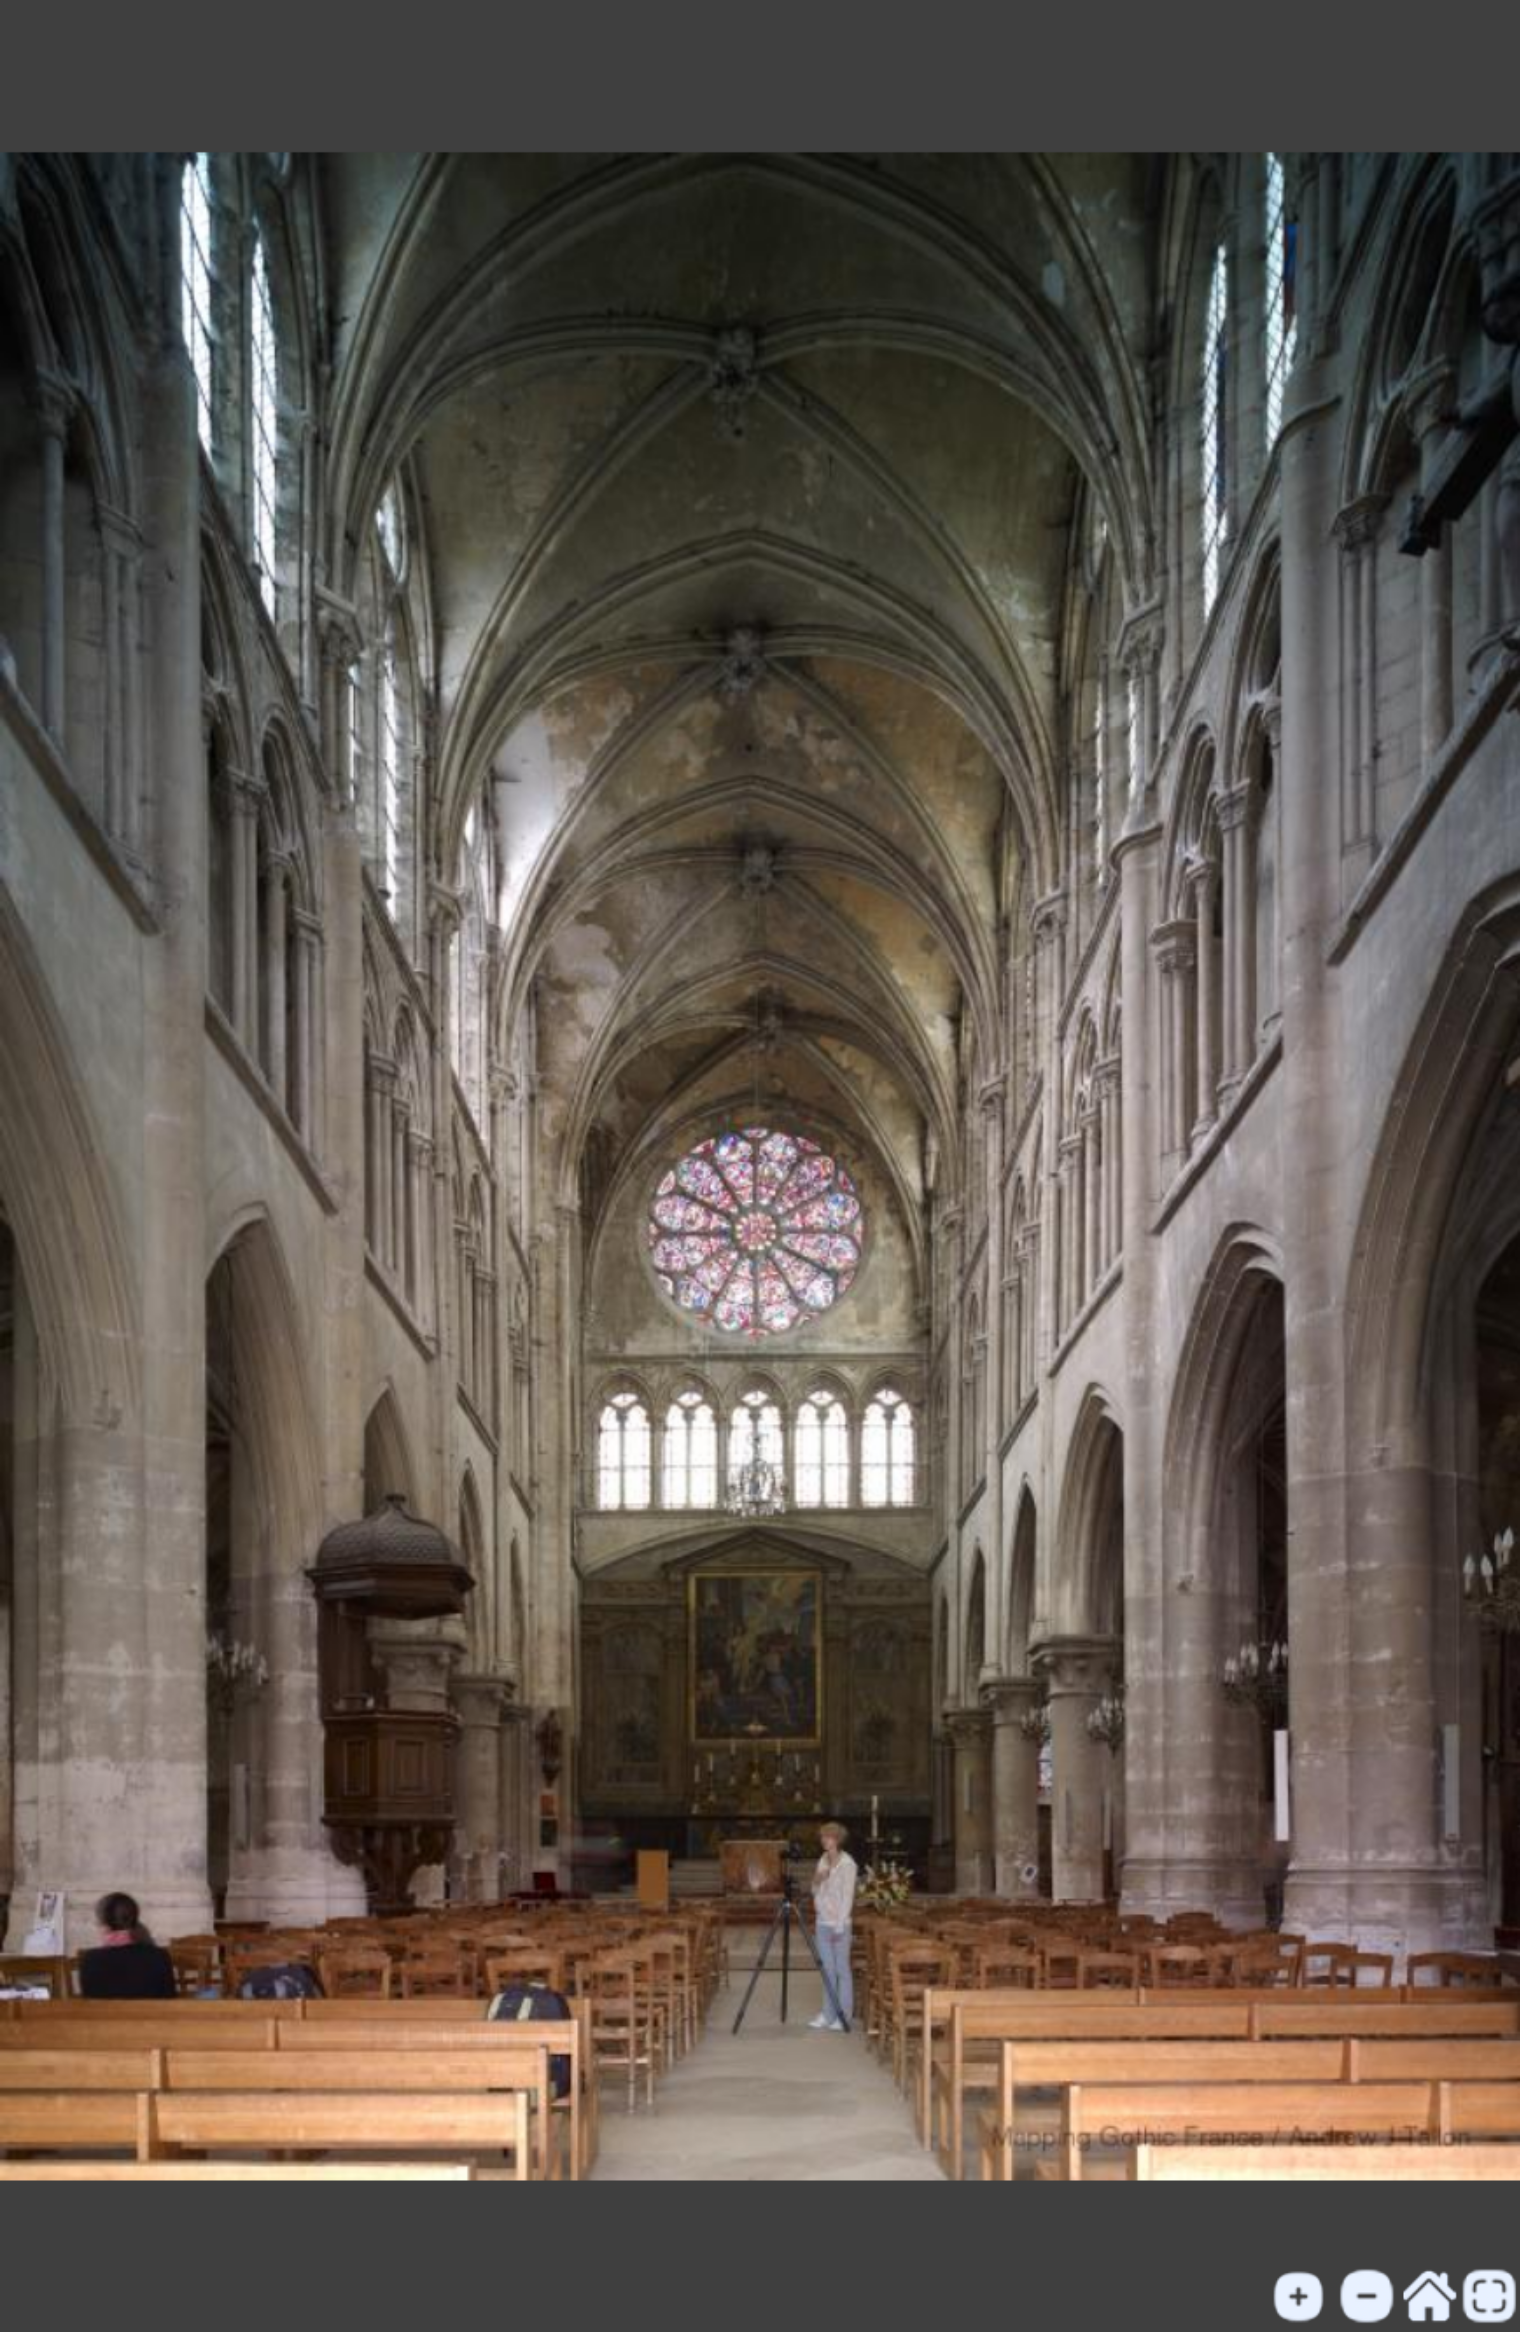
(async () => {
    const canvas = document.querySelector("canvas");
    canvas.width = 1520;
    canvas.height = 2332;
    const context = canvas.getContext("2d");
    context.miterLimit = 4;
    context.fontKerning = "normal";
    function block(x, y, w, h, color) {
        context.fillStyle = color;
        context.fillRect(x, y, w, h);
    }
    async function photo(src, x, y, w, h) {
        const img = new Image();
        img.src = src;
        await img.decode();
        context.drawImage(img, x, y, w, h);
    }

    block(0, 0, 1520, 2332, "rgb(63, 63, 63)");
    await photo("media/1.png", 0, 151, 1520, 2030);
    await photo("media/2.png", 1273, 2271, 51, 52);
    await photo("media/3.png", 1273, 2271, 51, 52);
    await photo("media/4.png", 1339, 2268, 56, 56);
    await photo("media/5.png", 1340, 2269, 54, 54);
    await photo("media/6.png", 1403, 2269, 54, 54);
    await photo("media/7.png", 1403, 2270, 54, 52);
    await photo("media/8.png", 1461, 2268, 56, 56);
    await photo("media/9.png", 1462, 2269, 54, 54);
})();
